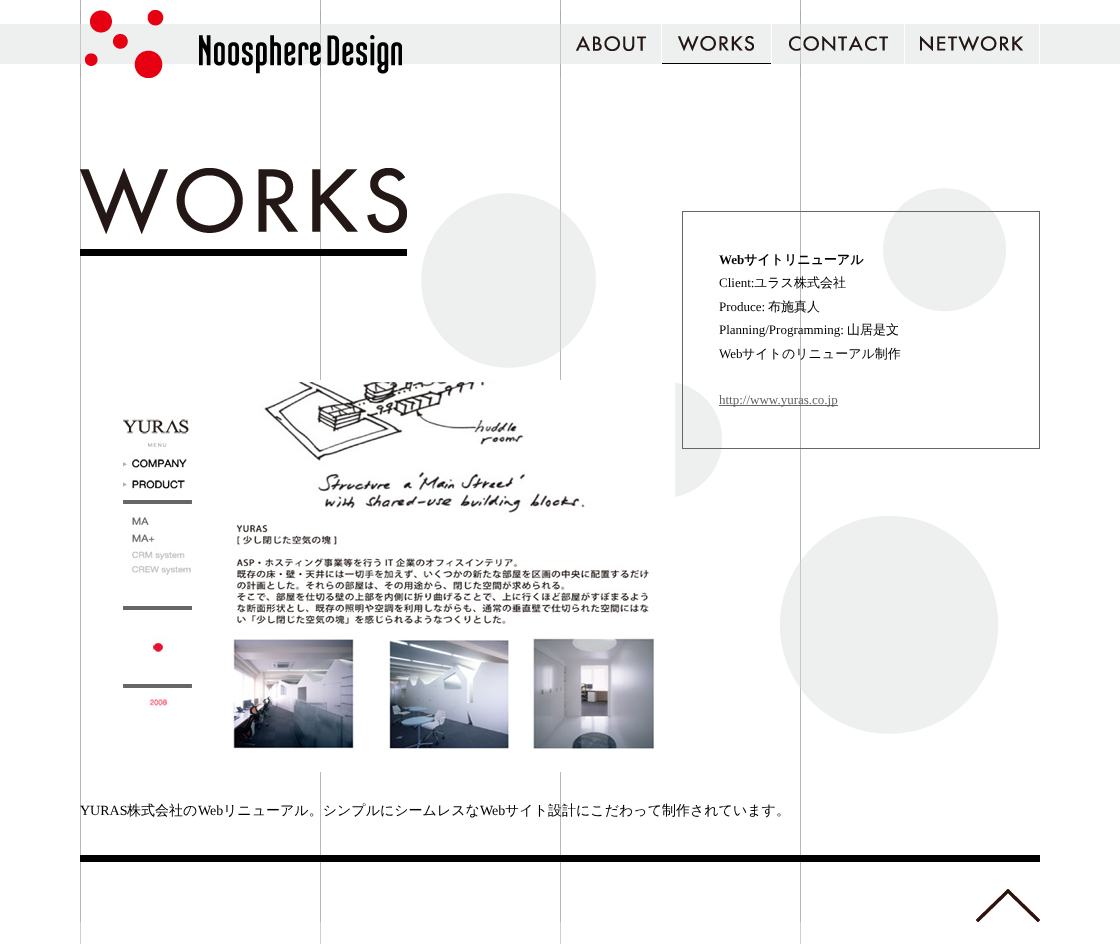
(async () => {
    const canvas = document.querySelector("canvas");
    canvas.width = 1120;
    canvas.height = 944;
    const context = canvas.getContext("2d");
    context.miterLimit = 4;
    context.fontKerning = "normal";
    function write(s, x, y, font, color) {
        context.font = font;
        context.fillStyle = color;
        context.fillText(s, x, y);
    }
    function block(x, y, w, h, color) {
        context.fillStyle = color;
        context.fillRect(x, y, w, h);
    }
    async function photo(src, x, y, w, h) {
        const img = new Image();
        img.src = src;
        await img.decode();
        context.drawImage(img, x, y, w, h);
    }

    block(0, 0, 1120, 944, "rgb(255, 255, 255)");
    await photo("media/1.png", 80, 0, 721, 944);
    block(0, 24, 1120, 40, "rgb(238, 239, 239)");
    await photo("media/8.png", 421, 193, 175, 175);
    await photo("media/15.png", 675, 382, 48, 115);
    await photo("media/16.png", 780, 515, 219, 219);
    await photo("media/10.png", 80, 0, 721, 922);
    await photo("media/2.png", 80, 10, 721, 68);
    await photo("media/3.png", 85, 10, 317, 68);
    block(661, 24, 1, 40, "rgb(255, 255, 255)");
    await photo("media/4.png", 576, 36, 70, 15);
    block(771, 24, 1, 40, "rgb(255, 255, 255)");
    await photo("media/5.png", 678, 36, 76, 15);
    block(904, 24, 1, 40, "rgb(255, 255, 255)");
    await photo("media/6.png", 789, 36, 99, 15);
    block(1039, 24, 1, 40, "rgb(255, 255, 255)");
    await photo("media/7.png", 920, 36, 103, 15);
    block(662, 63, 109, 1, "rgb(0, 0, 0)");
    await photo("media/9.png", 883, 188, 123, 124);
    block(80, 855, 960, 7, "rgb(0, 0, 0)");
    block(80, 249, 327, 7, "rgb(0, 0, 0)");
    await photo("media/11.png", 80, 168, 327, 66);
    await photo("media/12.png", 119, 380, 556, 392);
    context.strokeStyle = "rgb(102, 102, 102)";
    context.strokeRect(682.5, 211.5, 357, 237);
    write("Web", 719, 264, "bold 13px Liberation Serif", "rgb(0, 0, 0)");
    write("サイトリニューアル", 744, 264, "bold 13px WenQuanYi Zen Hei", "rgb(0, 0, 0)");
    write("Client:", 719, 287, "13px Liberation Serif", "rgb(0, 0, 0)");
    write("ユラス株式会社", 754, 287, "500 13px WenQuanYi Zen Hei", "rgb(0, 0, 0)");
    write("Produce:", 719, 311, "13px Liberation Serif", "rgb(0, 0, 0)");
    write("布施真人", 768, 311, "500 13px WenQuanYi Zen Hei", "rgb(0, 0, 0)");
    write("Planning/Programming:", 719, 334, "13px Liberation Serif", "rgb(0, 0, 0)");
    write("山居是文", 847, 334, "500 13px WenQuanYi Zen Hei", "rgb(0, 0, 0)");
    write("Web", 719, 358, "13px Liberation Serif", "rgb(0, 0, 0)");
    write("サイトのリニューアル制作", 742, 358, "500 13px WenQuanYi Zen Hei", "rgb(0, 0, 0)");
    block(719, 405, 119, 1, "rgb(102, 102, 102)");
    write("http://www.yuras.co.jp", 719, 404, "13px Liberation Serif", "rgb(102, 102, 102)");
    write("YURAS", 80, 815, "14px Liberation Serif", "rgb(0, 0, 0)");
    write("株式会社の", 127, 815, "500 14px WenQuanYi Zen Hei", "rgb(0, 0, 0)");
    write("Web", 198, 815, "14px Liberation Serif", "rgb(0, 0, 0)");
    write("リニューアル。シンプルにシームレスな", 223, 815, "500 14px WenQuanYi Zen Hei", "rgb(0, 0, 0)");
    write("Web", 480, 815, "14px Liberation Serif", "rgb(0, 0, 0)");
    write("サイト設計にこだわって制作されています。", 505, 815, "500 14px WenQuanYi Zen Hei", "rgb(0, 0, 0)");
    await photo("media/13.png", 976, 889, 64, 33);
    await photo("media/14.png", 976, 889, 64, 33);
})();
